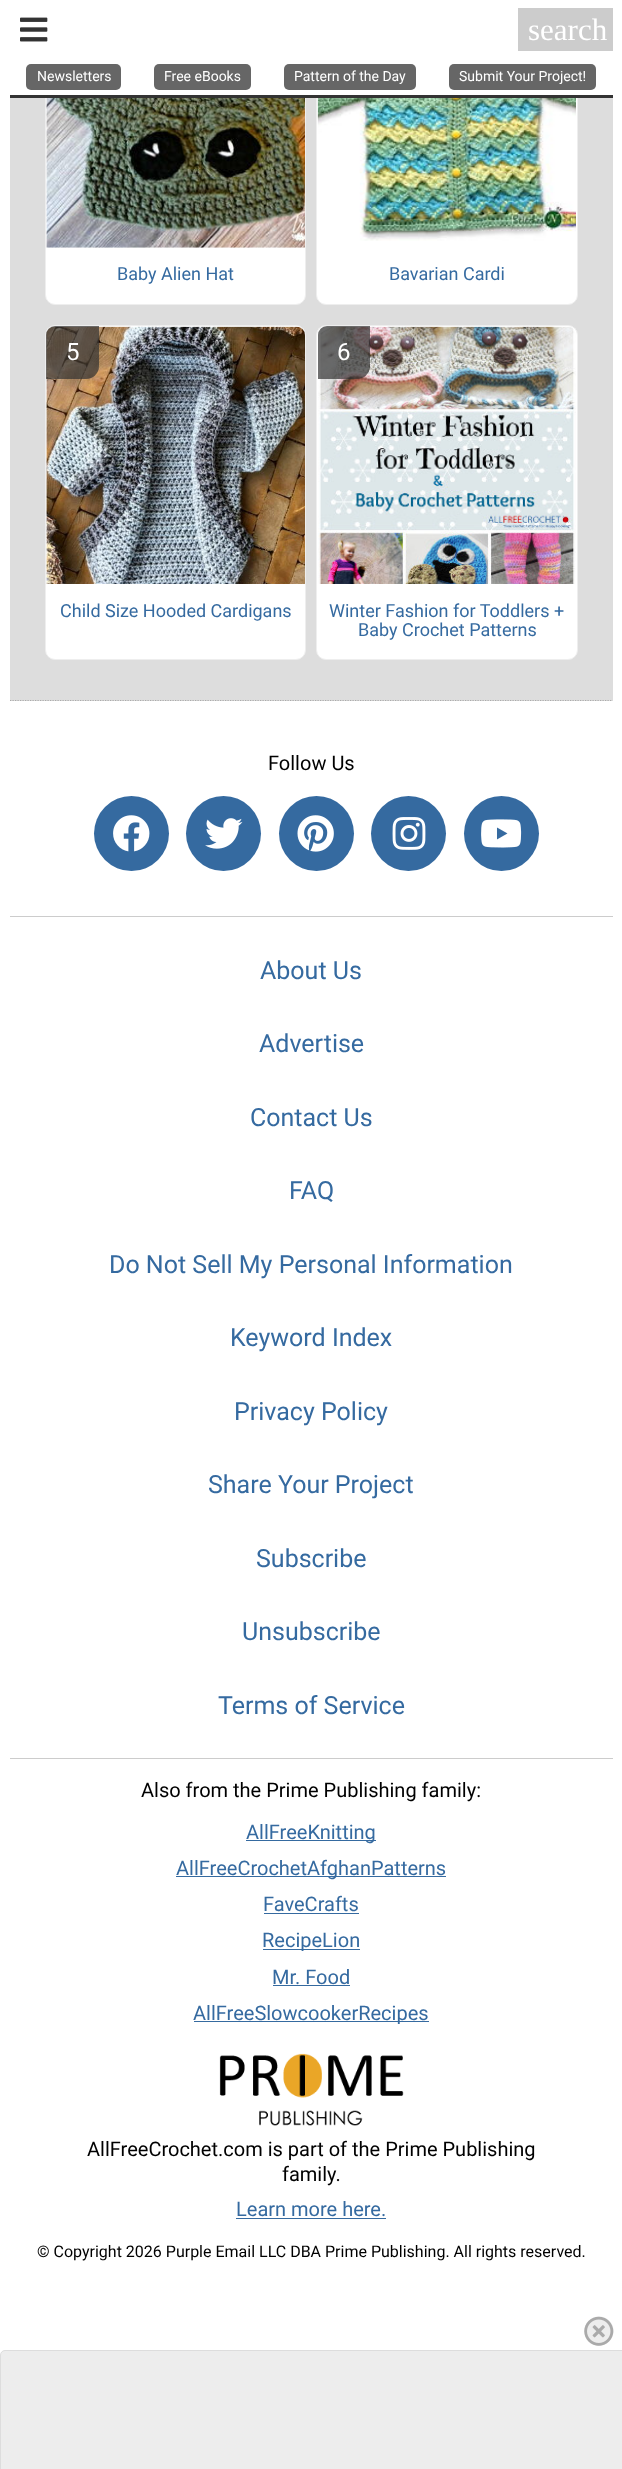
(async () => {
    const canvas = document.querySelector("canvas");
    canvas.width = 622;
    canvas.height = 2469;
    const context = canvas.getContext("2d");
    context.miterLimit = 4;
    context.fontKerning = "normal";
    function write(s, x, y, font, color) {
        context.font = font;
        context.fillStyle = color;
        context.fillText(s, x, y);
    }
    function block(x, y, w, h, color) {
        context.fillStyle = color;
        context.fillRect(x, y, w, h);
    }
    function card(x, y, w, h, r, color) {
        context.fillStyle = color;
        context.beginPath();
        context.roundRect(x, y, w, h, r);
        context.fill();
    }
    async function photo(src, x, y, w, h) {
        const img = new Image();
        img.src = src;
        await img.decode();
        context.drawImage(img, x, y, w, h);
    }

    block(0, 0, 622, 2469, "rgb(255, 255, 255)");
    block(10, 98, 603, 603, "rgb(221, 221, 221)");
    context.fillStyle = "rgb(255, 255, 255)";
    context.beginPath();
    context.roundRect(45.5, -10.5, 260, 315, 9.5);
    context.fill();
    context.strokeStyle = "rgb(238, 238, 238)";
    context.stroke();
    context.beginPath();
    context.roundRect(316.5, -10.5, 261, 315, 9.5);
    context.fill();
    context.stroke();
    block(45, 0, 533, 95, "rgb(255, 255, 255)");
    block(10, 95, 603, 3, "rgb(51, 51, 51)");
    await photo("media/1.png", 20, 17, 28, 25);
    block(518, 8, 95, 43, "rgb(204, 204, 204)");
    write("search", 528, 40, "31px Liberation Serif", "rgb(255, 255, 255)");
    card(26, 64, 95, 26, 5, "rgb(102, 102, 102)");
    write("Newsletters", 37, 81, "14px Roboto", "rgb(255, 255, 255)");
    card(154, 64, 97, 26, 5, "rgb(102, 102, 102)");
    write("Free eBooks", 164, 81, "14px Roboto", "rgb(255, 255, 255)");
    card(284, 64, 132, 26, 5, "rgb(102, 102, 102)");
    write("Pattern of the Day", 294, 81, "14px Roboto", "rgb(255, 255, 255)");
    card(449, 64, 147, 26, 5, "rgb(102, 102, 102)");
    write("Submit Your Project!", 459, 81, "14px Roboto", "rgb(255, 255, 255)");
    context.beginPath();
    context.moveTo(10, 700.5);
    context.lineTo(612.5, 700.5);
    context.strokeStyle = "rgb(170, 170, 170)";
    context.lineWidth = 1.2;
    context.setLineDash([1.25, 1.25]);
    context.stroke();
    await photo("media/2.png", 46, 98, 259, 150);
    write("Baby Alien Hat", 117, 280, "18px Roboto", "rgb(53, 106, 160)");
    await photo("media/3.png", 317, 98, 259, 143);
    write("Bavarian Cardi", 389, 280, "18px Roboto", "rgb(53, 106, 160)");
    context.fillStyle = "rgb(255, 255, 255)";
    context.beginPath();
    context.roundRect(45.5, 325.5, 260, 334, 9.5);
    context.fill();
    context.strokeStyle = "rgb(238, 238, 238)";
    context.lineWidth = 1;
    context.setLineDash([]);
    context.stroke();
    await photo("media/4.png", 46, 326, 259, 258);
    context.fillStyle = "rgba(50, 50, 50, 0.7)";
    context.beginPath();
    context.roundRect(46, 326, 53, 53, [9, 0, 13, 0]);
    context.fill();
    write("5", 66, 360, "24px Roboto", "rgb(255, 255, 255)");
    write("Child Size Hooded Cardigans", 60, 617, "18px Roboto", "rgb(53, 106, 160)");
    context.fillStyle = "rgb(255, 255, 255)";
    context.beginPath();
    context.roundRect(316.5, 325.5, 261, 334, 9.5);
    context.fill();
    context.stroke();
    await photo("media/5.png", 318, 326, 258, 258);
    context.fillStyle = "rgba(50, 50, 50, 0.7)";
    context.beginPath();
    context.roundRect(318, 326, 52, 53, [9, 0, 13, 0]);
    context.fill();
    write("6", 337, 360, "24px Roboto", "rgb(255, 255, 255)");
    write("Winter Fashion for Toddlers +", 329, 617, "18px Roboto", "rgb(53, 106, 160)");
    write("Baby Crochet Patterns", 358, 636, "18px Roboto", "rgb(53, 106, 160)");
    write("Follow Us", 268, 770, "20px Roboto", "rgb(0, 0, 0)");
    context.fillStyle = "rgb(53, 106, 160)";
    context.beginPath();
    context.arc(131.5, 833.5, 37.5, 0, Math.PI * 2);
    context.fill();
    await photo("media/6.png", 113, 815, 37, 37);
    context.beginPath();
    context.arc(223.5, 833.5, 37.5, 0, Math.PI * 2);
    context.fill();
    await photo("media/7.png", 205, 818, 38, 31);
    context.beginPath();
    context.arc(316.5, 833.5, 37.5, 0, Math.PI * 2);
    context.fill();
    await photo("media/8.png", 297, 815, 37, 37);
    context.beginPath();
    context.arc(408.5, 833.5, 37.5, 0, Math.PI * 2);
    context.fill();
    await photo("media/9.png", 392, 817, 34, 33);
    context.beginPath();
    context.arc(501.5, 833.5, 37.5, 0, Math.PI * 2);
    context.fill();
    await photo("media/10.png", 481, 819, 41, 29);
    block(10, 916, 603, 1, "rgb(204, 204, 204)");
    block(10, 1758, 603, 1, "rgb(204, 204, 204)");
    write("About Us", 260, 979, "25px Roboto", "rgb(53, 106, 160)");
    write("Advertise", 259, 1052, "25px Roboto", "rgb(53, 106, 160)");
    write("Contact Us", 250, 1126, "25px Roboto", "rgb(53, 106, 160)");
    write("FAQ", 289, 1199, "25px Roboto", "rgb(53, 106, 160)");
    write("Do Not Sell My Personal Information", 109, 1273, "25px Roboto", "rgb(53, 106, 160)");
    write("Keyword Index", 230, 1346, "25px Roboto", "rgb(53, 106, 160)");
    write("Privacy Policy", 234, 1420, "25px Roboto", "rgb(53, 106, 160)");
    write("Share Your Project", 208, 1493, "25px Roboto", "rgb(53, 106, 160)");
    write("Subscribe", 256, 1567, "25px Roboto", "rgb(53, 106, 160)");
    write("Unsubscribe", 242, 1640, "25px Roboto", "rgb(53, 106, 160)");
    write("Terms of Service", 218, 1714, "25px Roboto", "rgb(53, 106, 160)");
    write("Also from the Prime Publishing family:", 141, 1797, "20px Roboto", "rgb(0, 0, 0)");
    block(246, 1840, 130, 1, "rgb(53, 106, 160)");
    write("AllFreeKnitting", 246, 1839, "20px Roboto", "rgb(53, 106, 160)");
    block(176, 1876, 270, 1, "rgb(53, 106, 160)");
    write("AllFreeCrochetAfghanPatterns", 176, 1875, "20px Roboto", "rgb(53, 106, 160)");
    write("FaveCrafts", 263, 1911, "20px Roboto", "rgb(53, 106, 160)");
    block(264, 1913, 95, 1, "rgb(53, 106, 160)");
    block(263, 1949, 97, 1, "rgb(53, 106, 160)");
    write("RecipeLion", 262, 1947, "20px Roboto", "rgb(53, 106, 160)");
    write("Mr. Food", 272, 1984, "20px Roboto", "rgb(53, 106, 160)");
    block(273, 1985, 77, 1, "rgb(53, 106, 160)");
    block(194, 2021, 235, 1, "rgb(53, 106, 160)");
    write("AllFreeSlowcookerRecipes", 193, 2020, "20px Roboto", "rgb(53, 106, 160)");
    await photo("media/11.png", 219, 2053, 185, 73);
    write("AllFreeCrochet.com is part of the Prime Publishing", 87, 2156, "20px Roboto", "rgb(0, 0, 0)");
    write("family.", 282, 2181, "20px Roboto", "rgb(0, 0, 0)");
    write("Learn more here.", 236, 2216, "20px Roboto", "rgb(53, 106, 160)");
    block(236, 2218, 150, 1, "rgb(53, 106, 160)");
    write("© Copyright 2026 Purple Email LLC DBA Prime Publishing. All rights reserved.", 37, 2257, "16px Roboto", "rgb(0, 0, 0)");
    context.fillStyle = "rgb(237, 237, 237)";
    context.beginPath();
    context.moveTo(5, 2350.5);
    context.lineTo(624.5, 2350.5);
    context.lineTo(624.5, 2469.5);
    context.lineTo(0.5, 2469.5);
    context.lineTo(0.5, 2355);
    context.bezierCurveTo(0.5, 2352.5, 2.5, 2350.5, 5, 2350.5);
    context.closePath();
    context.fill();
    context.strokeStyle = "rgb(221, 221, 221)";
    context.stroke();
    await photo("media/12.png", 584, 2316, 30, 30);
})();
